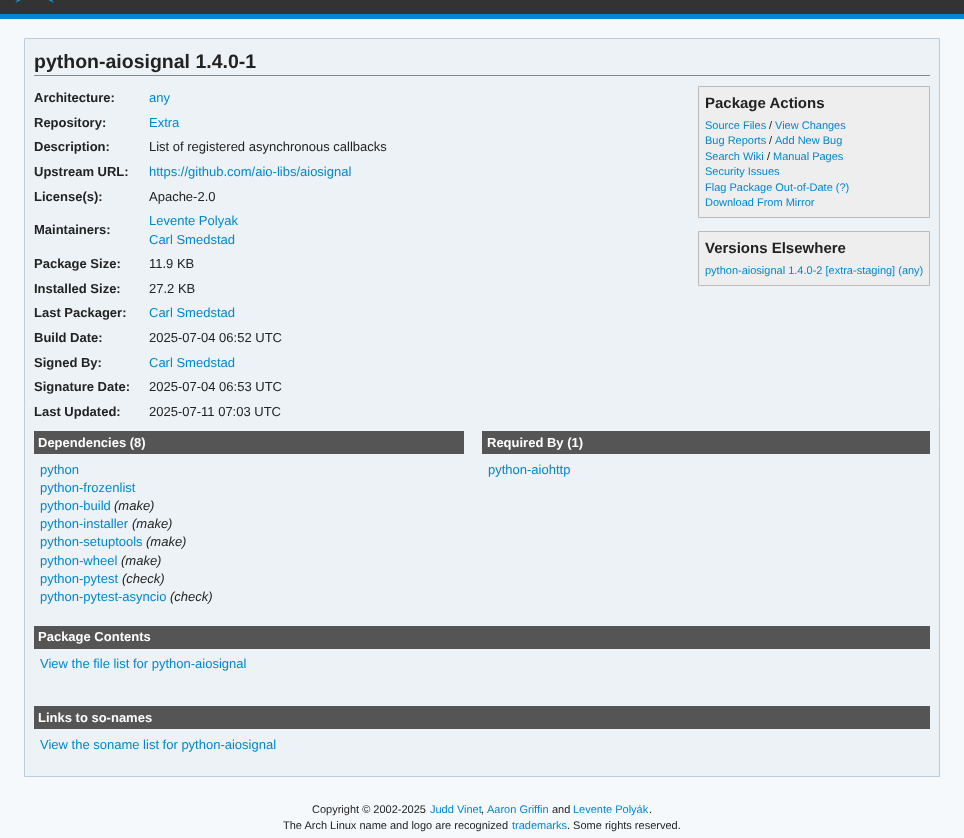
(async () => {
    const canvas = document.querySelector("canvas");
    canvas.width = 964;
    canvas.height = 838;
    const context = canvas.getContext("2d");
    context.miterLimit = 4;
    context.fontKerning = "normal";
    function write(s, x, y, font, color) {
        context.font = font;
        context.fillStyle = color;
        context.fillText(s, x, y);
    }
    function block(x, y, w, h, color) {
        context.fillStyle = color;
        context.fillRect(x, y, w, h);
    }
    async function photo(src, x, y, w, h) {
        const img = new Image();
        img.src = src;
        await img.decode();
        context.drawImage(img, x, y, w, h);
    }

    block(0, 0, 964, 838, "rgb(246, 249, 252)");
    block(0, 0, 964, 14, "rgb(51, 51, 51)");
    block(0, 14, 964, 5, "rgb(0, 136, 204)");
    await photo("media/1.png", 15, 0, 39, 3);
    context.fillStyle = "rgb(236, 242, 245)";
    context.beginPath();
    context.rect(24.5, 38.5, 915, 738);
    context.fill();
    context.strokeStyle = "rgb(187, 204, 221)";
    context.stroke();
    block(34, 75, 896, 1, "rgb(136, 136, 136)");
    write("python-aiosignal 1.4.0-1", 34, 68, "bold 19.5px Liberation Sans", "rgb(34, 34, 34)");
    write("Architecture:", 34, 102, "bold 13px Liberation Sans", "rgb(34, 34, 34)");
    write("any", 149, 102, "13px Liberation Sans", "rgb(0, 136, 204)");
    write("Repository:", 34, 127, "bold 13px Liberation Sans", "rgb(34, 34, 34)");
    write("Extra", 149, 127, "13px Liberation Sans", "rgb(0, 136, 204)");
    write("Description:", 34, 151, "bold 13px Liberation Sans", "rgb(34, 34, 34)");
    write("List of registered asynchronous callbacks", 149, 151, "13px Liberation Sans", "rgb(34, 34, 34)");
    write("Upstream URL:", 34, 176, "bold 13px Liberation Sans", "rgb(34, 34, 34)");
    write("https://github.com/aio-libs/aiosignal", 149, 176, "13px Liberation Sans", "rgb(0, 136, 204)");
    write("License(s):", 34, 201, "bold 13px Liberation Sans", "rgb(34, 34, 34)");
    write("Apache-2.0", 149, 201, "13px Liberation Sans", "rgb(34, 34, 34)");
    write("Maintainers:", 34, 234, "bold 13px Liberation Sans", "rgb(34, 34, 34)");
    write("Levente Polyak", 149, 225, "13px Liberation Sans", "rgb(0, 136, 204)");
    write("Carl Smedstad", 149, 244, "13px Liberation Sans", "rgb(0, 136, 204)");
    write("Package Size:", 34, 268, "bold 13px Liberation Sans", "rgb(34, 34, 34)");
    write("11.9 KB", 149, 268, "13px Liberation Sans", "rgb(34, 34, 34)");
    write("Installed Size:", 34, 293, "bold 13px Liberation Sans", "rgb(34, 34, 34)");
    write("27.2 KB", 149, 293, "13px Liberation Sans", "rgb(34, 34, 34)");
    write("Last Packager:", 34, 317, "bold 13px Liberation Sans", "rgb(34, 34, 34)");
    write("Carl Smedstad", 149, 317, "13px Liberation Sans", "rgb(0, 136, 204)");
    write("Build Date:", 34, 342, "bold 13px Liberation Sans", "rgb(34, 34, 34)");
    write("2025-07-04 06:52 UTC", 149, 342, "13px Liberation Sans", "rgb(34, 34, 34)");
    write("Signed By:", 34, 367, "bold 13px Liberation Sans", "rgb(34, 34, 34)");
    write("Carl Smedstad", 149, 367, "13px Liberation Sans", "rgb(0, 136, 204)");
    write("Signature Date:", 34, 391, "bold 13px Liberation Sans", "rgb(34, 34, 34)");
    write("2025-07-04 06:53 UTC", 149, 391, "13px Liberation Sans", "rgb(34, 34, 34)");
    write("Last Updated:", 34, 416, "bold 13px Liberation Sans", "rgb(34, 34, 34)");
    write("2025-07-11 07:03 UTC", 149, 416, "13px Liberation Sans", "rgb(34, 34, 34)");
    context.fillStyle = "rgb(238, 238, 238)";
    context.beginPath();
    context.rect(698.5, 86.5, 231, 131);
    context.fill();
    context.strokeStyle = "rgb(187, 187, 187)";
    context.stroke();
    write("Package Actions", 705, 108, "bold 15px Liberation Sans", "rgb(34, 34, 34)");
    write("Source Files", 705, 129, "11px Liberation Sans", "rgb(0, 136, 204)");
    write("/", 769, 129, "11px Liberation Sans", "rgb(34, 34, 34)");
    write("View Changes", 775, 129, "11px Liberation Sans", "rgb(0, 136, 204)");
    write("Bug Reports", 705, 144, "11px Liberation Sans", "rgb(0, 136, 204)");
    write("/", 769, 144, "11px Liberation Sans", "rgb(34, 34, 34)");
    write("Add New Bug", 775, 144, "11px Liberation Sans", "rgb(0, 136, 204)");
    write("Search Wiki", 705, 160, "11px Liberation Sans", "rgb(0, 136, 204)");
    write("/", 767, 160, "11px Liberation Sans", "rgb(34, 34, 34)");
    write("Manual Pages", 773, 160, "11px Liberation Sans", "rgb(0, 136, 204)");
    write("Security Issues", 705, 175, "11px Liberation Sans", "rgb(0, 136, 204)");
    write("Flag Package Out-of-Date (?)", 705, 191, "11px Liberation Sans", "rgb(0, 136, 204)");
    write("Download From Mirror", 705, 206, "11px Liberation Sans", "rgb(0, 136, 204)");
    context.fillStyle = "rgb(238, 238, 238)";
    context.beginPath();
    context.rect(698.5, 231.5, 231, 54);
    context.fill();
    context.stroke();
    write("Versions Elsewhere", 705, 253, "bold 15px Liberation Sans", "rgb(34, 34, 34)");
    write("python-aiosignal 1.4.0-2 [extra-staging] (any)", 705, 274, "11px Liberation Sans", "rgb(0, 136, 204)");
    block(34, 431, 430, 23, "rgb(85, 85, 85)");
    write("Dependencies (8)", 38, 447, "bold 13px Liberation Sans", "rgb(255, 255, 255)");
    write("python", 40, 474, "13px Liberation Sans", "rgb(0, 136, 204)");
    write("python-frozenlist", 40, 492, "13px Liberation Sans", "rgb(0, 136, 204)");
    write("python-build", 40, 510, "13px Liberation Sans", "rgb(0, 136, 204)");
    write("(make)", 114, 510, "italic 13px Liberation Sans", "rgb(34, 34, 34)");
    write("python-installer", 40, 528, "13px Liberation Sans", "rgb(0, 136, 204)");
    write("(make)", 132, 528, "italic 13px Liberation Sans", "rgb(34, 34, 34)");
    write("python-setuptools", 40, 546, "13px Liberation Sans", "rgb(0, 136, 204)");
    write("(make)", 146, 546, "italic 13px Liberation Sans", "rgb(34, 34, 34)");
    write("python-wheel", 40, 565, "13px Liberation Sans", "rgb(0, 136, 204)");
    write("(make)", 121, 565, "italic 13px Liberation Sans", "rgb(34, 34, 34)");
    write("python-pytest", 40, 583, "13px Liberation Sans", "rgb(0, 136, 204)");
    write("(check)", 122, 583, "italic 13px Liberation Sans", "rgb(34, 34, 34)");
    write("python-pytest-asyncio", 40, 601, "13px Liberation Sans", "rgb(0, 136, 204)");
    write("(check)", 170, 601, "italic 13px Liberation Sans", "rgb(34, 34, 34)");
    block(482, 431, 448, 23, "rgb(85, 85, 85)");
    write("Required By (1)", 487, 447, "bold 13px Liberation Sans", "rgb(255, 255, 255)");
    write("python-aiohttp", 488, 474, "13px Liberation Sans", "rgb(0, 136, 204)");
    block(34, 626, 896, 23, "rgb(85, 85, 85)");
    write("Package Contents", 38, 641, "bold 13px Liberation Sans", "rgb(255, 255, 255)");
    write("View the file list for python-aiosignal", 40, 668, "13px Liberation Sans", "rgb(0, 136, 204)");
    block(34, 706, 896, 23, "rgb(85, 85, 85)");
    write("Links to so-names", 38, 722, "bold 13px Liberation Sans", "rgb(255, 255, 255)");
    write("View the soname list for python-aiosignal", 40, 749, "13px Liberation Sans", "rgb(0, 136, 204)");
    write("Copyright © 2002-2025", 312, 813, "11px Liberation Sans", "rgb(34, 34, 34)");
    write("Judd Vinet", 430, 813, "11px Liberation Sans", "rgb(0, 136, 204)");
    write(",", 481, 813, "11px Liberation Sans", "rgb(34, 34, 34)");
    write("Aaron Griffin", 487, 813, "11px Liberation Sans", "rgb(0, 136, 204)");
    write("and", 552, 813, "11px Liberation Sans", "rgb(34, 34, 34)");
    write("Levente Polyák", 573, 813, "11px Liberation Sans", "rgb(0, 136, 204)");
    write(".", 649, 813, "11px Liberation Sans", "rgb(34, 34, 34)");
    write("The Arch Linux name and logo are recognized", 283, 829, "11px Liberation Sans", "rgb(34, 34, 34)");
    write("trademarks", 512, 829, "11px Liberation Sans", "rgb(0, 136, 204)");
    write(". Some rights reserved.", 567, 829, "11px Liberation Sans", "rgb(34, 34, 34)");
})();
